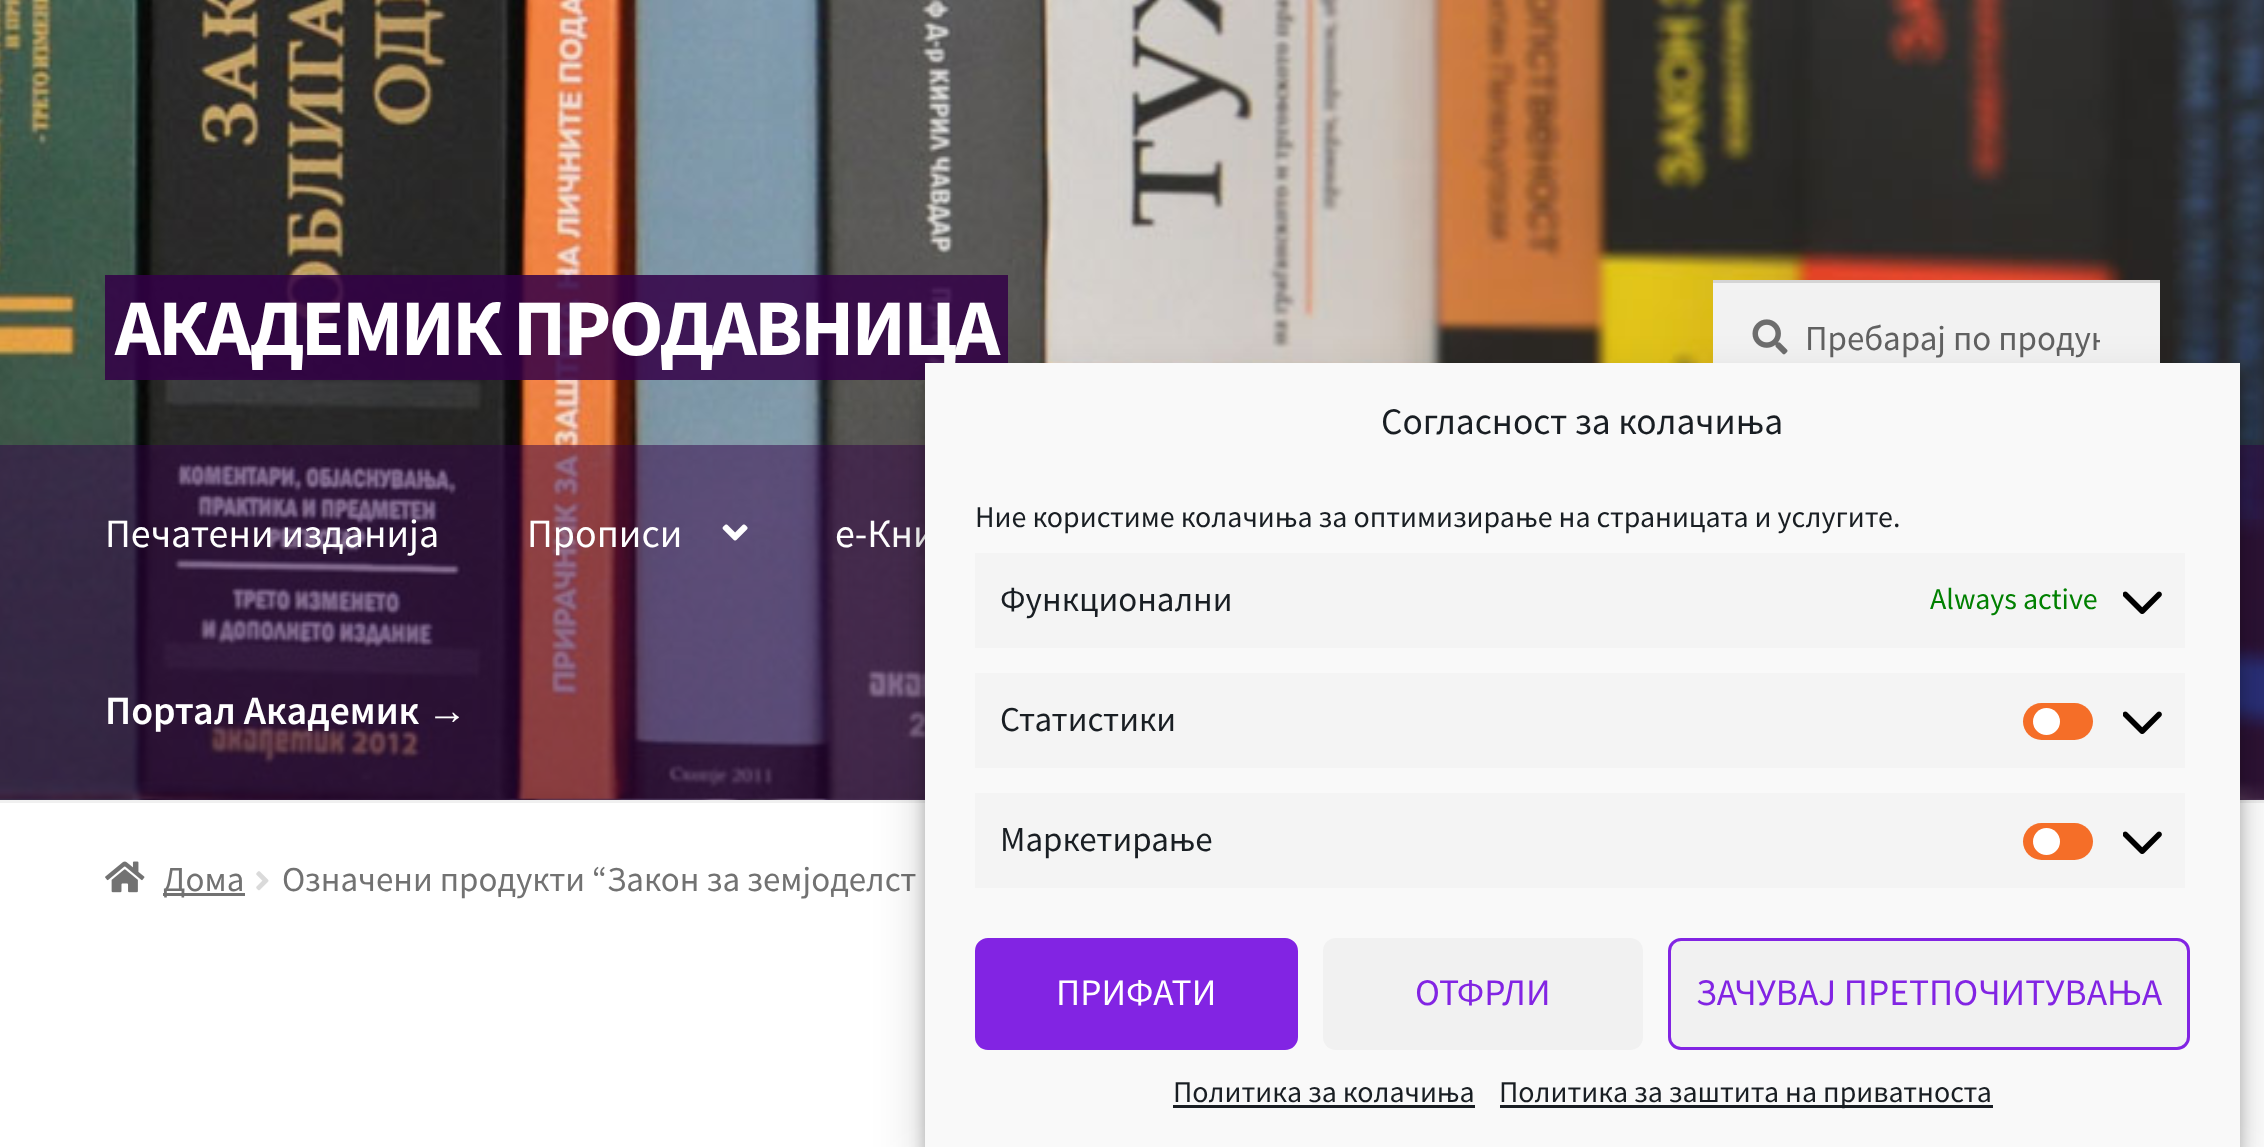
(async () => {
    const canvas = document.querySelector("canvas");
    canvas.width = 2264;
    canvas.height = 1147;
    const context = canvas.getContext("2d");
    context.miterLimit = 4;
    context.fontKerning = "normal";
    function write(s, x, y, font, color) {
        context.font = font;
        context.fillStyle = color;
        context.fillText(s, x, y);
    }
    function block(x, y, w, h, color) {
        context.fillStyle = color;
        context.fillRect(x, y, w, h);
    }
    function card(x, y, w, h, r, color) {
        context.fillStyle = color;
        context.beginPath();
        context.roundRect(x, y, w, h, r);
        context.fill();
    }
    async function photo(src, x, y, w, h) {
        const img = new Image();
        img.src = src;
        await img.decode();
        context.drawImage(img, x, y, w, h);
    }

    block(0, 0, 2264, 1147, "rgb(255, 255, 255)");
    await photo("media/1.png", 0, 0, 2264, 800);
    block(0, 800, 2264, 3, "rgb(240, 240, 240)");
    block(105, 275, 903, 105, "rgba(50, 0, 70, 0.85)");
    context.letterSpacing = "-2.5px";
    write("АКАДЕМИК ПРОДАВНИЦА", 115, 355, "bold 80px Source Sans Pro", "rgb(255, 255, 255)");
    block(1713, 283, 447, 80, "rgb(242, 242, 242)");
    await photo("media/2.png", 1752, 319, 36, 36);
    block(1713, 280, 447, 3, "rgb(212, 212, 212)");
    context.save();
    context.beginPath();
    context.rect(1805, 315, 295, 45);
    context.clip();
    context.letterSpacing = "0px";
    write("Пребарај по продук", 1805, 350, "35px Source Sans Pro", "rgb(97, 97, 97)");
    context.restore();
    block(0, 445, 2264, 355, "rgba(50, 0, 70, 0.5)");
    context.letterSpacing = "0px";
    write("Печатени изданија", 105, 547, "40px Source Sans Pro", "rgb(255, 255, 255)");
    write("Прописи", 527, 547, "40px Source Sans Pro", "rgb(255, 255, 255)");
    await photo("media/3.png", 722, 524, 26, 17);
    write("е-Кни", 835, 547, "40px Source Sans Pro", "rgb(255, 255, 255)");
    write("Портал Академик", 105, 724, "600 40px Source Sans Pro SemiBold", "rgb(255, 255, 255)");
    write("→", 427, 724, "40px Liberation Sans", "rgb(255, 255, 255)");
    await photo("media/4.png", 105, 861, 40, 32);
    block(163, 893, 82, 3, "rgb(114, 114, 114)");
    write("Дома", 163, 891, "35px Source Sans Pro", "rgb(114, 114, 114)");
    await photo("media/5.png", 256, 871, 13, 20);
    write("Означени продукти “Закон за земјоделст", 282, 891, "35px Source Sans Pro", "rgb(114, 114, 114)");
    context.fillStyle = "rgba(0, 0, 0, 0.23)";
    context.filter = "blur(7.5px)";
    context.beginPath();
    context.rect(925, 378, 1315, 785);
    context.fill();
    context.filter = "none";
    context.fillStyle = "rgba(0, 0, 0, 0.19)";
    context.filter = "blur(25px)";
    context.beginPath();
    context.rect(925, 388, 1315, 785);
    context.fill();
    context.filter = "none";
    block(925, 363, 1315, 784, "rgb(249, 249, 249)");
    write("Согласност за колачиња", 1381, 434, "37.5px Source Sans Pro", "rgb(25, 30, 35)");
    write("Ние користиме колачиња за оптимизирање на страницата и услугите.", 975, 527, "30px Source Sans Pro", "rgb(25, 30, 35)");
    block(975, 553, 1210, 95, "rgb(244, 244, 244)");
    write("Функционални", 1000, 611, "35px Source Sans Pro", "rgb(25, 30, 35)");
    write("Always active", 1930, 609, "30px Source Sans Pro", "rgb(0, 128, 0)");
    await photo("media/6.png", 2123, 591, 39, 23);
    block(975, 673, 1210, 95, "rgb(244, 244, 244)");
    write("Статистики", 1000, 731, "35px Source Sans Pro", "rgb(25, 30, 35)");
    card(2023, 703, 70, 37, 18.5, "rgb(245, 110, 40)");
    context.fillStyle = "rgb(255, 255, 255)";
    context.beginPath();
    context.arc(2046.5, 721.5, 13.5, 0, Math.PI * 2);
    context.fill();
    await photo("media/6.png", 2123, 711, 39, 23);
    block(975, 793, 1210, 95, "rgb(244, 244, 244)");
    write("Маркетирање", 1000, 851, "35px Source Sans Pro", "rgb(25, 30, 35)");
    card(2023, 823, 70, 37, 18.5, "rgb(245, 110, 40)");
    context.fillStyle = "rgb(255, 255, 255)";
    context.beginPath();
    context.arc(2046.5, 841.5, 13.5, 0, Math.PI * 2);
    context.fill();
    await photo("media/6.png", 2123, 831, 39, 23);
    context.fillStyle = "rgb(130, 36, 227)";
    context.beginPath();
    context.roundRect(976.5, 939.5, 320, 109, 11.5);
    context.fill();
    context.strokeStyle = "rgb(130, 36, 227)";
    context.lineWidth = 3;
    context.stroke();
    write("ПРИФАТИ", 1056, 1005, "37.5px Source Sans Pro", "rgb(255, 255, 255)");
    card(1323, 938, 320, 112, 13, "rgb(241, 241, 241)");
    write("ОТФРЛИ", 1415, 1005, "37.5px Source Sans Pro", "rgb(130, 36, 227)");
    context.fillStyle = "rgb(241, 241, 241)";
    context.beginPath();
    context.roundRect(1669.5, 939.5, 519, 109, 11.5);
    context.fill();
    context.stroke();
    write("ЗАЧУВАЈ ПРЕТПОЧИТУВАЊА", 1696, 1005, "37.5px Source Sans Pro", "rgb(130, 36, 227)");
    write("Политика за колачиња", 1173, 1102, "30px Source Sans Pro", "rgb(25, 30, 35)");
    block(1173, 1105, 302, 3, "rgb(25, 30, 35)");
    block(1500, 1105, 493, 3, "rgb(25, 30, 35)");
    write("Политика за заштита на приватноста", 1499, 1102, "30px Source Sans Pro", "rgb(25, 30, 35)");
})();
